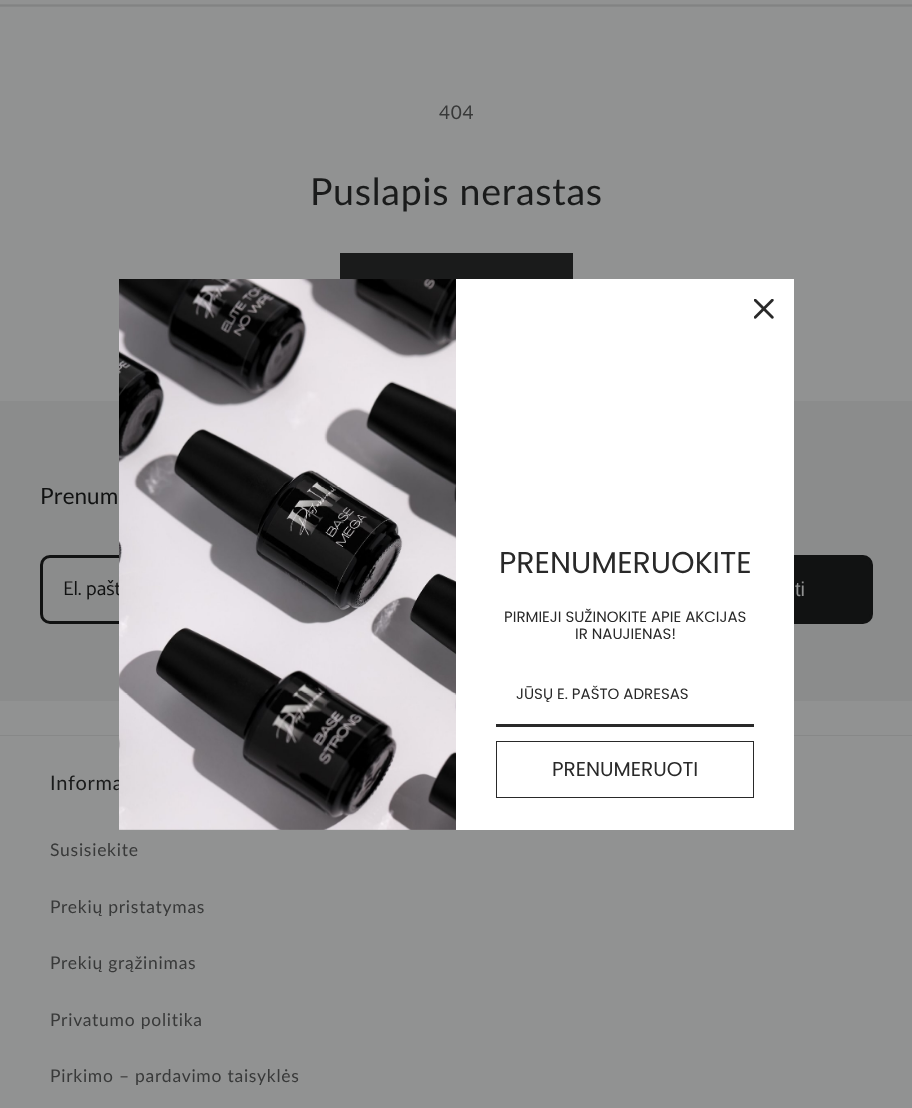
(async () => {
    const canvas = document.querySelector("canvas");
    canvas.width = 912;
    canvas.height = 1108;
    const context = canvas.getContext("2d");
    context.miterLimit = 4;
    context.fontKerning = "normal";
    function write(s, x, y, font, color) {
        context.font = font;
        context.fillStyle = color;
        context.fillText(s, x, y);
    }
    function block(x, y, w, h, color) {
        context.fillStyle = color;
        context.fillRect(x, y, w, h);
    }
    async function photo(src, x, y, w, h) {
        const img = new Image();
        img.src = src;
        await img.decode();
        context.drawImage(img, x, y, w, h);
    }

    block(0, 0, 912, 1108, "rgb(145, 146, 146)");
    block(0, 4, 912, 1, "rgb(135, 136, 136)");
    block(0, 5, 912, 1, "rgb(130, 131, 131)");
    block(0, 6, 912, 1, "rgb(135, 136, 136)");
    context.letterSpacing = "0.75px";
    write("404", 439, 119, "19px Lato", "rgb(56, 57, 57)");
    write("Puslapis nerastas", 310, 205, "37.5px Lato", "rgb(26, 27, 27)");
    block(340, 253, 233, 26, "rgb(26, 27, 27)");
    block(0, 401, 912, 300, "rgb(139, 140, 140)");
    context.letterSpacing = "0px";
    write("Prenum", 40, 504, "22.5px 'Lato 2'", "rgb(17, 18, 18)");
    context.beginPath();
    context.roundRect(41.5, 556.5, 545, 66, 8.5);
    context.strokeStyle = "rgb(17, 18, 18)";
    context.lineWidth = 3;
    context.stroke();
    write("El. pašt", 63, 595, "20px Catamaran", "rgb(17, 18, 18)");
    context.beginPath();
    context.roundRect(619.5, 556.5, 252, 66, 8.5);
    context.fill();
    context.stroke();
    write("ti", 795, 596, "20px Liberation Sans", "rgb(145, 146, 146)");
    block(0, 735, 912, 1, "rgb(135, 136, 136)");
    block(456, 279, 338, 551, "rgb(255, 255, 255)");
    await photo("media/1.png", 754, 299, 20, 20);
    context.letterSpacing = "0.75px";
    write("Informa", 50, 790, "20px Lato", "rgb(26, 27, 27)");
    await photo("media/2.png", 119, 279, 337, 551);
    context.letterSpacing = "0px";
    write("PRENUMERUOKITE", 499, 573, "30px Poppins", "rgb(41, 41, 41)");
    write("PIRMIEJI SUŽINOKITE APIE AKCIJAS", 504, 622, "15px Poppins", "rgb(41, 41, 41)");
    write("IR NAUJIENAS!", 575, 639, "15px Poppins", "rgb(41, 41, 41)");
    block(496, 724, 258, 3, "rgb(41, 41, 41)");
    write("JŪSŲ E. PAŠTO ADRESAS", 516, 699, "15px Poppins", "rgb(41, 41, 41)");
    context.strokeStyle = "rgb(41, 41, 41)";
    context.lineWidth = 1;
    context.strokeRect(496.5, 741.5, 257, 56);
    write("PRENUMERUOTI", 552, 776, "20px Poppins", "rgb(41, 41, 41)");
    context.letterSpacing = "0.75px";
    write("Susisiekite", 50, 856, "17.5px Lato", "rgb(56, 57, 57)");
    write("Prekių pristatymas", 50, 913, "17.5px Lato", "rgb(56, 57, 57)");
    write("Prekių grąžinimas", 50, 969, "17.5px Lato", "rgb(56, 57, 57)");
    write("Privatumo politika", 50, 1026, "17.5px Lato", "rgb(56, 57, 57)");
    write("Pirkimo – pardavimo taisyklės", 50, 1082, "17.5px Lato", "rgb(56, 57, 57)");
})();
